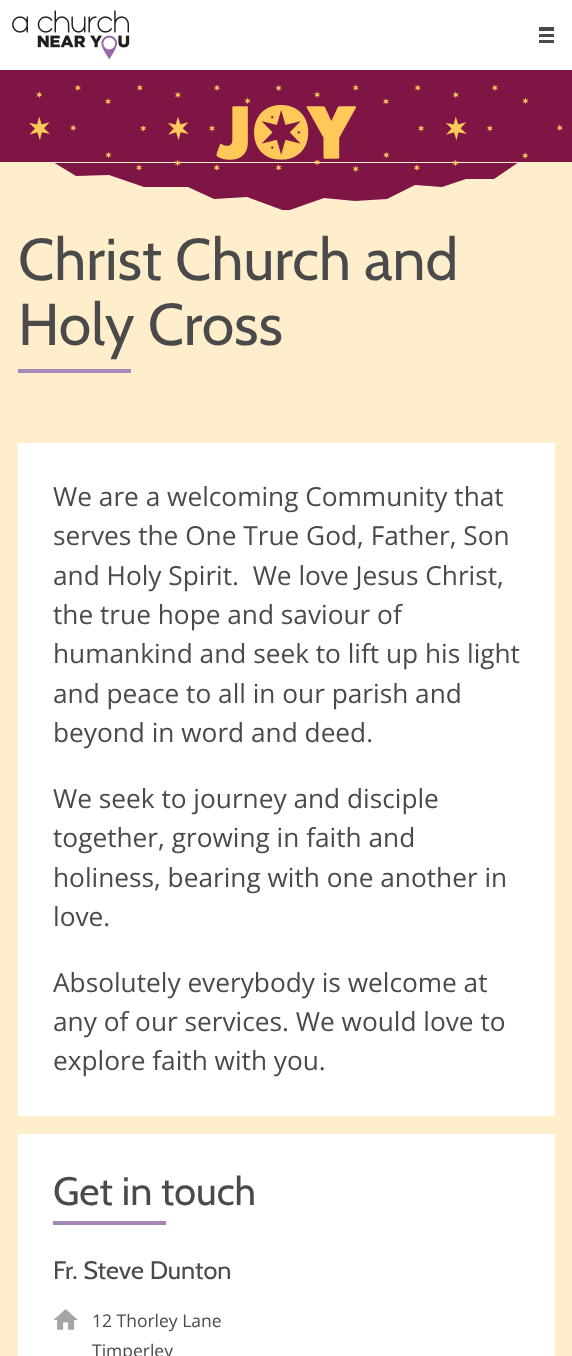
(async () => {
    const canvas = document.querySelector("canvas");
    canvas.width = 572;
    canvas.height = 1356;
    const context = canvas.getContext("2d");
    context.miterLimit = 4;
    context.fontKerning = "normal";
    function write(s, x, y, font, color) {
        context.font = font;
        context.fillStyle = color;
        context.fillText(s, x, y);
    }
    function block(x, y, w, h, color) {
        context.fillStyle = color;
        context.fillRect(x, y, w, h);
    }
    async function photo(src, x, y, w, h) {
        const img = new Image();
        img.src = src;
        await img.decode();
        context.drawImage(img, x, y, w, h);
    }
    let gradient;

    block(0, 0, 572, 1356, "rgb(255, 238, 204)");
    block(0, 0, 572, 70, "rgb(255, 255, 255)");
    await photo("media/1.png", 12, 10, 118, 50);
    block(539, 27, 15, 4, "rgb(74, 74, 74)");
    block(539, 34, 15, 3, "rgb(74, 74, 74)");
    block(539, 40, 15, 3, "rgb(74, 74, 74)");
    gradient = context.createLinearGradient(286, 70, 286, 210);
    gradient.addColorStop(0, "rgb(126, 21, 68)");
    gradient.addColorStop(0.66, "rgb(126, 21, 68)");
    gradient.addColorStop(0.66, "rgb(255, 238, 204)");
    gradient.addColorStop(1, "rgb(255, 238, 204)");
    context.fillStyle = gradient;
    context.fillRect(0, 70, 572, 92);
    context.save();
    context.beginPath();
    context.rect(0, 163, 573, 47);
    context.clip();
    context.fillStyle = "rgb(126, 21, 68)";
    context.beginPath();
    context.moveTo(109, 175);
    context.lineTo(76, 176);
    context.lineTo(53, 162);
    context.lineTo(519, 162);
    context.lineTo(494, 179);
    context.lineTo(466, 179);
    context.lineTo(442, 187);
    context.lineTo(415, 185);
    context.lineTo(387, 199);
    context.lineTo(355, 201);
    context.lineTo(324, 198);
    context.lineTo(287, 211);
    context.lineTo(285, 211);
    context.lineTo(247, 197);
    context.lineTo(214, 199);
    context.lineTo(188, 187);
    context.lineTo(144, 187);
    context.closePath();
    context.fill();
    context.restore();
    await photo("media/2.png", 29, 84, 534, 89);
    block(244, 116, 111, 44, "rgb(126, 21, 68)");
    await photo("media/3.png", 216, 105, 140, 55);
    write("Christ Church and", 18, 280, "59px Cabin", "rgb(74, 74, 74)");
    write("Holy Cross", 18, 345, "59px Cabin", "rgb(74, 74, 74)");
    block(18, 369, 113, 4, "rgb(166, 136, 183)");
    block(18, 443, 537, 673, "rgb(255, 255, 255)");
    write("We are a welcoming Community that", 53, 506, "26.25px Open Sans", "rgb(74, 74, 74)");
    write("serves the One True God, Father, Son", 53, 545, "26.25px Open Sans", "rgb(74, 74, 74)");
    write("and Holy Spirit.  We love Jesus Christ,", 53, 585, "26.25px Open Sans", "rgb(74, 74, 74)");
    write("the true hope and saviour of", 53, 624, "26.25px Open Sans", "rgb(74, 74, 74)");
    write("humankind and seek to lift up his light", 53, 663, "26.25px Open Sans", "rgb(74, 74, 74)");
    write("and peace to all in our parish and", 53, 703, "26.25px Open Sans", "rgb(74, 74, 74)");
    write("beyond in word and deed.", 53, 742, "26.25px Open Sans", "rgb(74, 74, 74)");
    write("We seek to journey and disciple", 53, 808, "26.25px Open Sans", "rgb(74, 74, 74)");
    write("together, growing in faith and", 53, 847, "26.25px Open Sans", "rgb(74, 74, 74)");
    write("holiness, bearing with one another in", 53, 887, "26.25px Open Sans", "rgb(74, 74, 74)");
    write("love.", 53, 926, "26.25px Open Sans", "rgb(74, 74, 74)");
    write("Absolutely everybody is welcome at", 53, 992, "26.25px Open Sans", "rgb(74, 74, 74)");
    write("any of our services. We would love to", 53, 1031, "26.25px Open Sans", "rgb(74, 74, 74)");
    write("explore faith with you.", 53, 1070, "26.25px Open Sans", "rgb(74, 74, 74)");
    block(18, 1134, 537, 222, "rgb(255, 255, 255)");
    write("Get in touch", 53, 1205, "39.5px Cabin", "rgb(74, 74, 74)");
    block(53, 1221, 113, 4, "rgb(166, 136, 183)");
    write("Fr. Steve Dunton", 53, 1279, "25.25px Cabin", "rgb(74, 74, 74)");
    await photo("media/4.png", 53, 1309, 25, 21);
    write("12 Thorley Lane", 92, 1327, "17.5px Open Sans", "rgb(74, 74, 74)");
    write("Timperley", 92, 1357, "17.5px Open Sans", "rgb(74, 74, 74)");
})();
